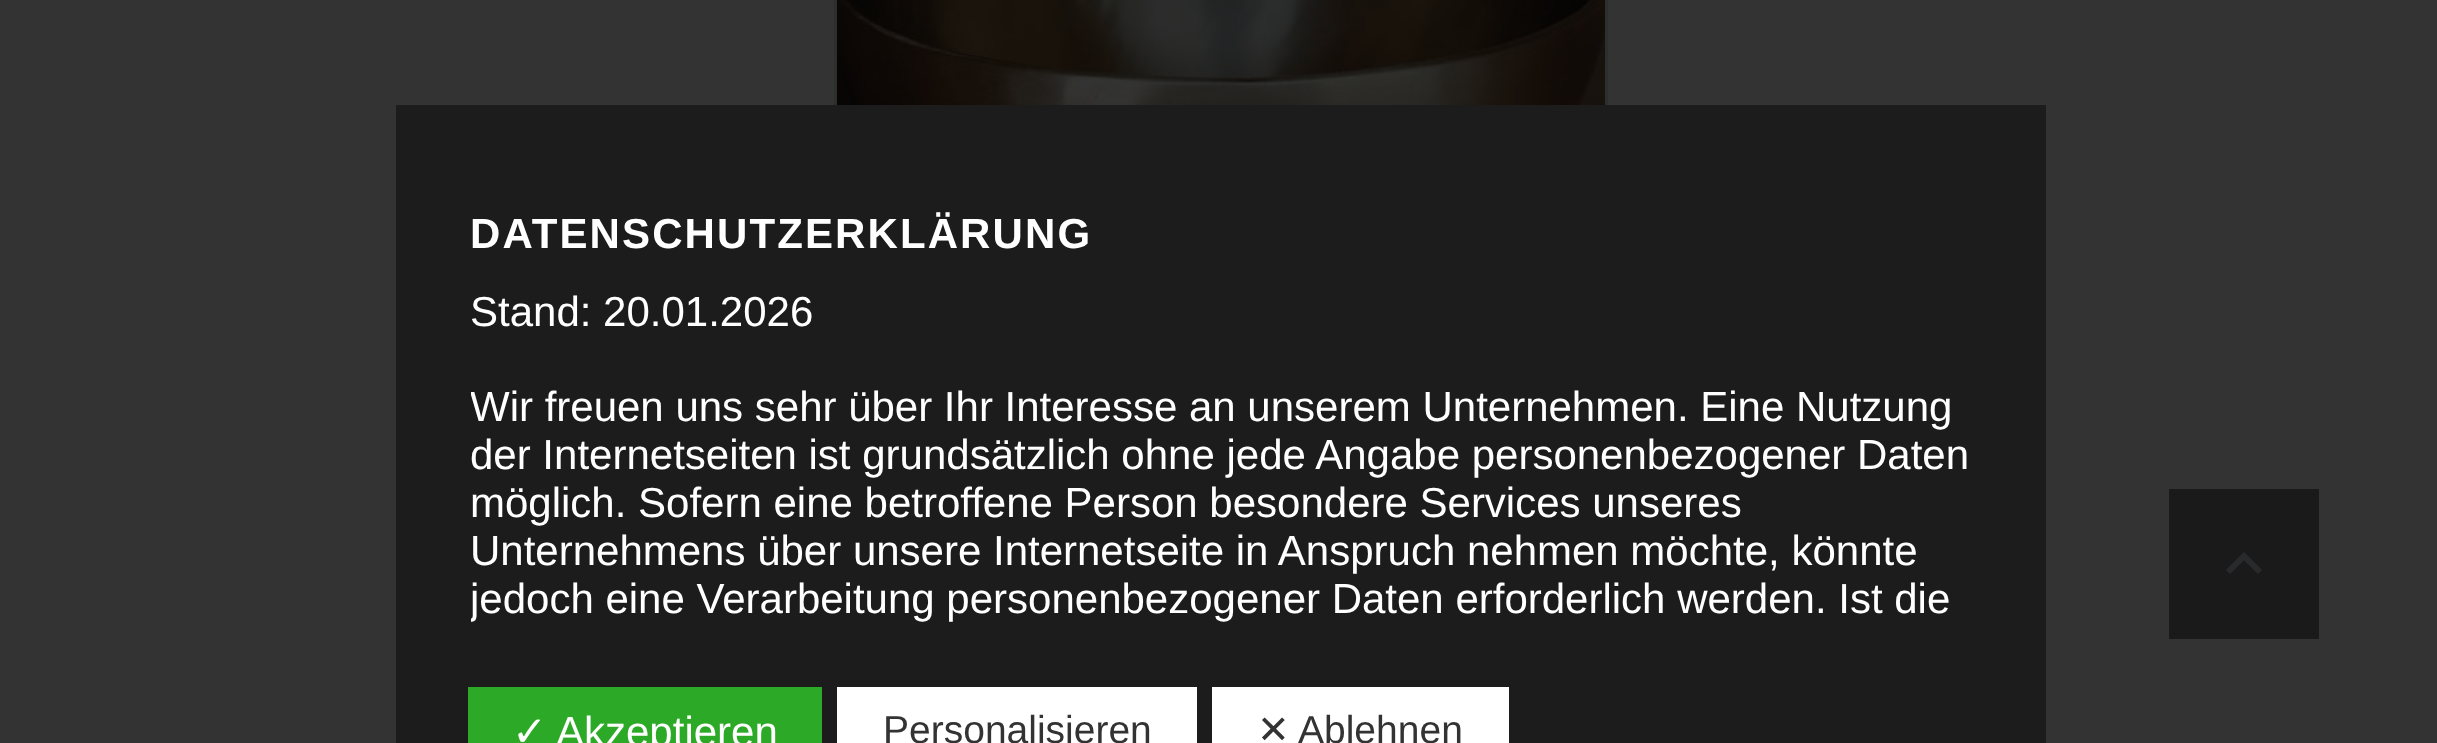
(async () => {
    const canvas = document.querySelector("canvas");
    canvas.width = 2437;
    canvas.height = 743;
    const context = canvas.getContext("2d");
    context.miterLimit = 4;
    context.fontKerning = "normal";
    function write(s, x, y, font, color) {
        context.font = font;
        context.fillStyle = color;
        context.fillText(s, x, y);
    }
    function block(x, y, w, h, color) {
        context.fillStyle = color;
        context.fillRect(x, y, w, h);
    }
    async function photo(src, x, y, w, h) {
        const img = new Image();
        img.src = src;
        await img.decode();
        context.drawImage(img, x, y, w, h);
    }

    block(0, 0, 2437, 743, "rgb(51, 51, 51)");
    context.strokeStyle = "rgb(45, 46, 46)";
    context.lineWidth = 3;
    context.strokeRect(835.5, -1.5, 771, 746);
    await photo("media/1.png", 837, 0, 768, 105);
    block(2169, 489, 150, 150, "rgb(26, 26, 27)");
    context.fillStyle = "rgb(41, 42, 44)";
    context.beginPath();
    context.moveTo(2230, 574);
    context.lineTo(2244, 560.5);
    context.lineTo(2258, 574);
    context.lineTo(2262, 570);
    context.lineTo(2244, 552);
    context.lineTo(2226, 570);
    context.closePath();
    context.fill();
    block(396, 105, 1650, 638, "rgb(29, 28, 28)");
    context.letterSpacing = "2.1px";
    write("DATENSCHUTZERKLÄRUNG", 470, 248, "bold 42px Liberation Sans", "rgb(255, 255, 255)");
    context.letterSpacing = "0px";
    write("Stand: 20.01.2026", 470, 326, "42px Liberation Sans", "rgb(255, 255, 255)");
    context.save();
    context.beginPath();
    context.rect(471, 180, 1575, 447);
    context.clip();
    write("Wir freuen uns sehr über Ihr Interesse an unserem Unternehmen. Eine Nutzung", 470, 421, "42px Liberation Sans", "rgb(255, 255, 255)");
    context.restore();
    write("der Internetseiten ist grundsätzlich ohne jede Angabe personenbezogener Daten", 470, 469, "42px Liberation Sans", "rgb(255, 255, 255)");
    write("möglich. Sofern eine betroffene Person besondere Services unseres", 470, 517, "42px Liberation Sans", "rgb(255, 255, 255)");
    write("Unternehmens über unsere Internetseite in Anspruch nehmen möchte, könnte", 470, 565, "42px Liberation Sans", "rgb(255, 255, 255)");
    context.save();
    context.beginPath();
    context.rect(471, 180, 1575, 447);
    context.clip();
    write("jedoch eine Verarbeitung personenbezogener Daten erforderlich werden. Ist die", 470, 613, "42px Liberation Sans", "rgb(255, 255, 255)");
    context.restore();
    block(468, 687, 354, 56, "rgb(44, 170, 39)");
    write("✓", 512, 746, "42px DejaVu Sans", "rgb(255, 255, 255)");
    write("Akzeptieren", 556, 746, "42px Liberation Sans", "rgb(255, 255, 255)");
    block(837, 687, 360, 56, "rgb(255, 255, 255)");
    write("Personalisieren", 883, 743, "39px Liberation Sans", "rgb(51, 51, 51)");
    block(1212, 687, 297, 56, "rgb(255, 255, 255)");
    write("✕", 1257, 743, "39px DejaVu Sans", "rgb(51, 51, 51)");
    write("Ablehnen", 1298, 743, "39px Liberation Sans", "rgb(51, 51, 51)");
})();
